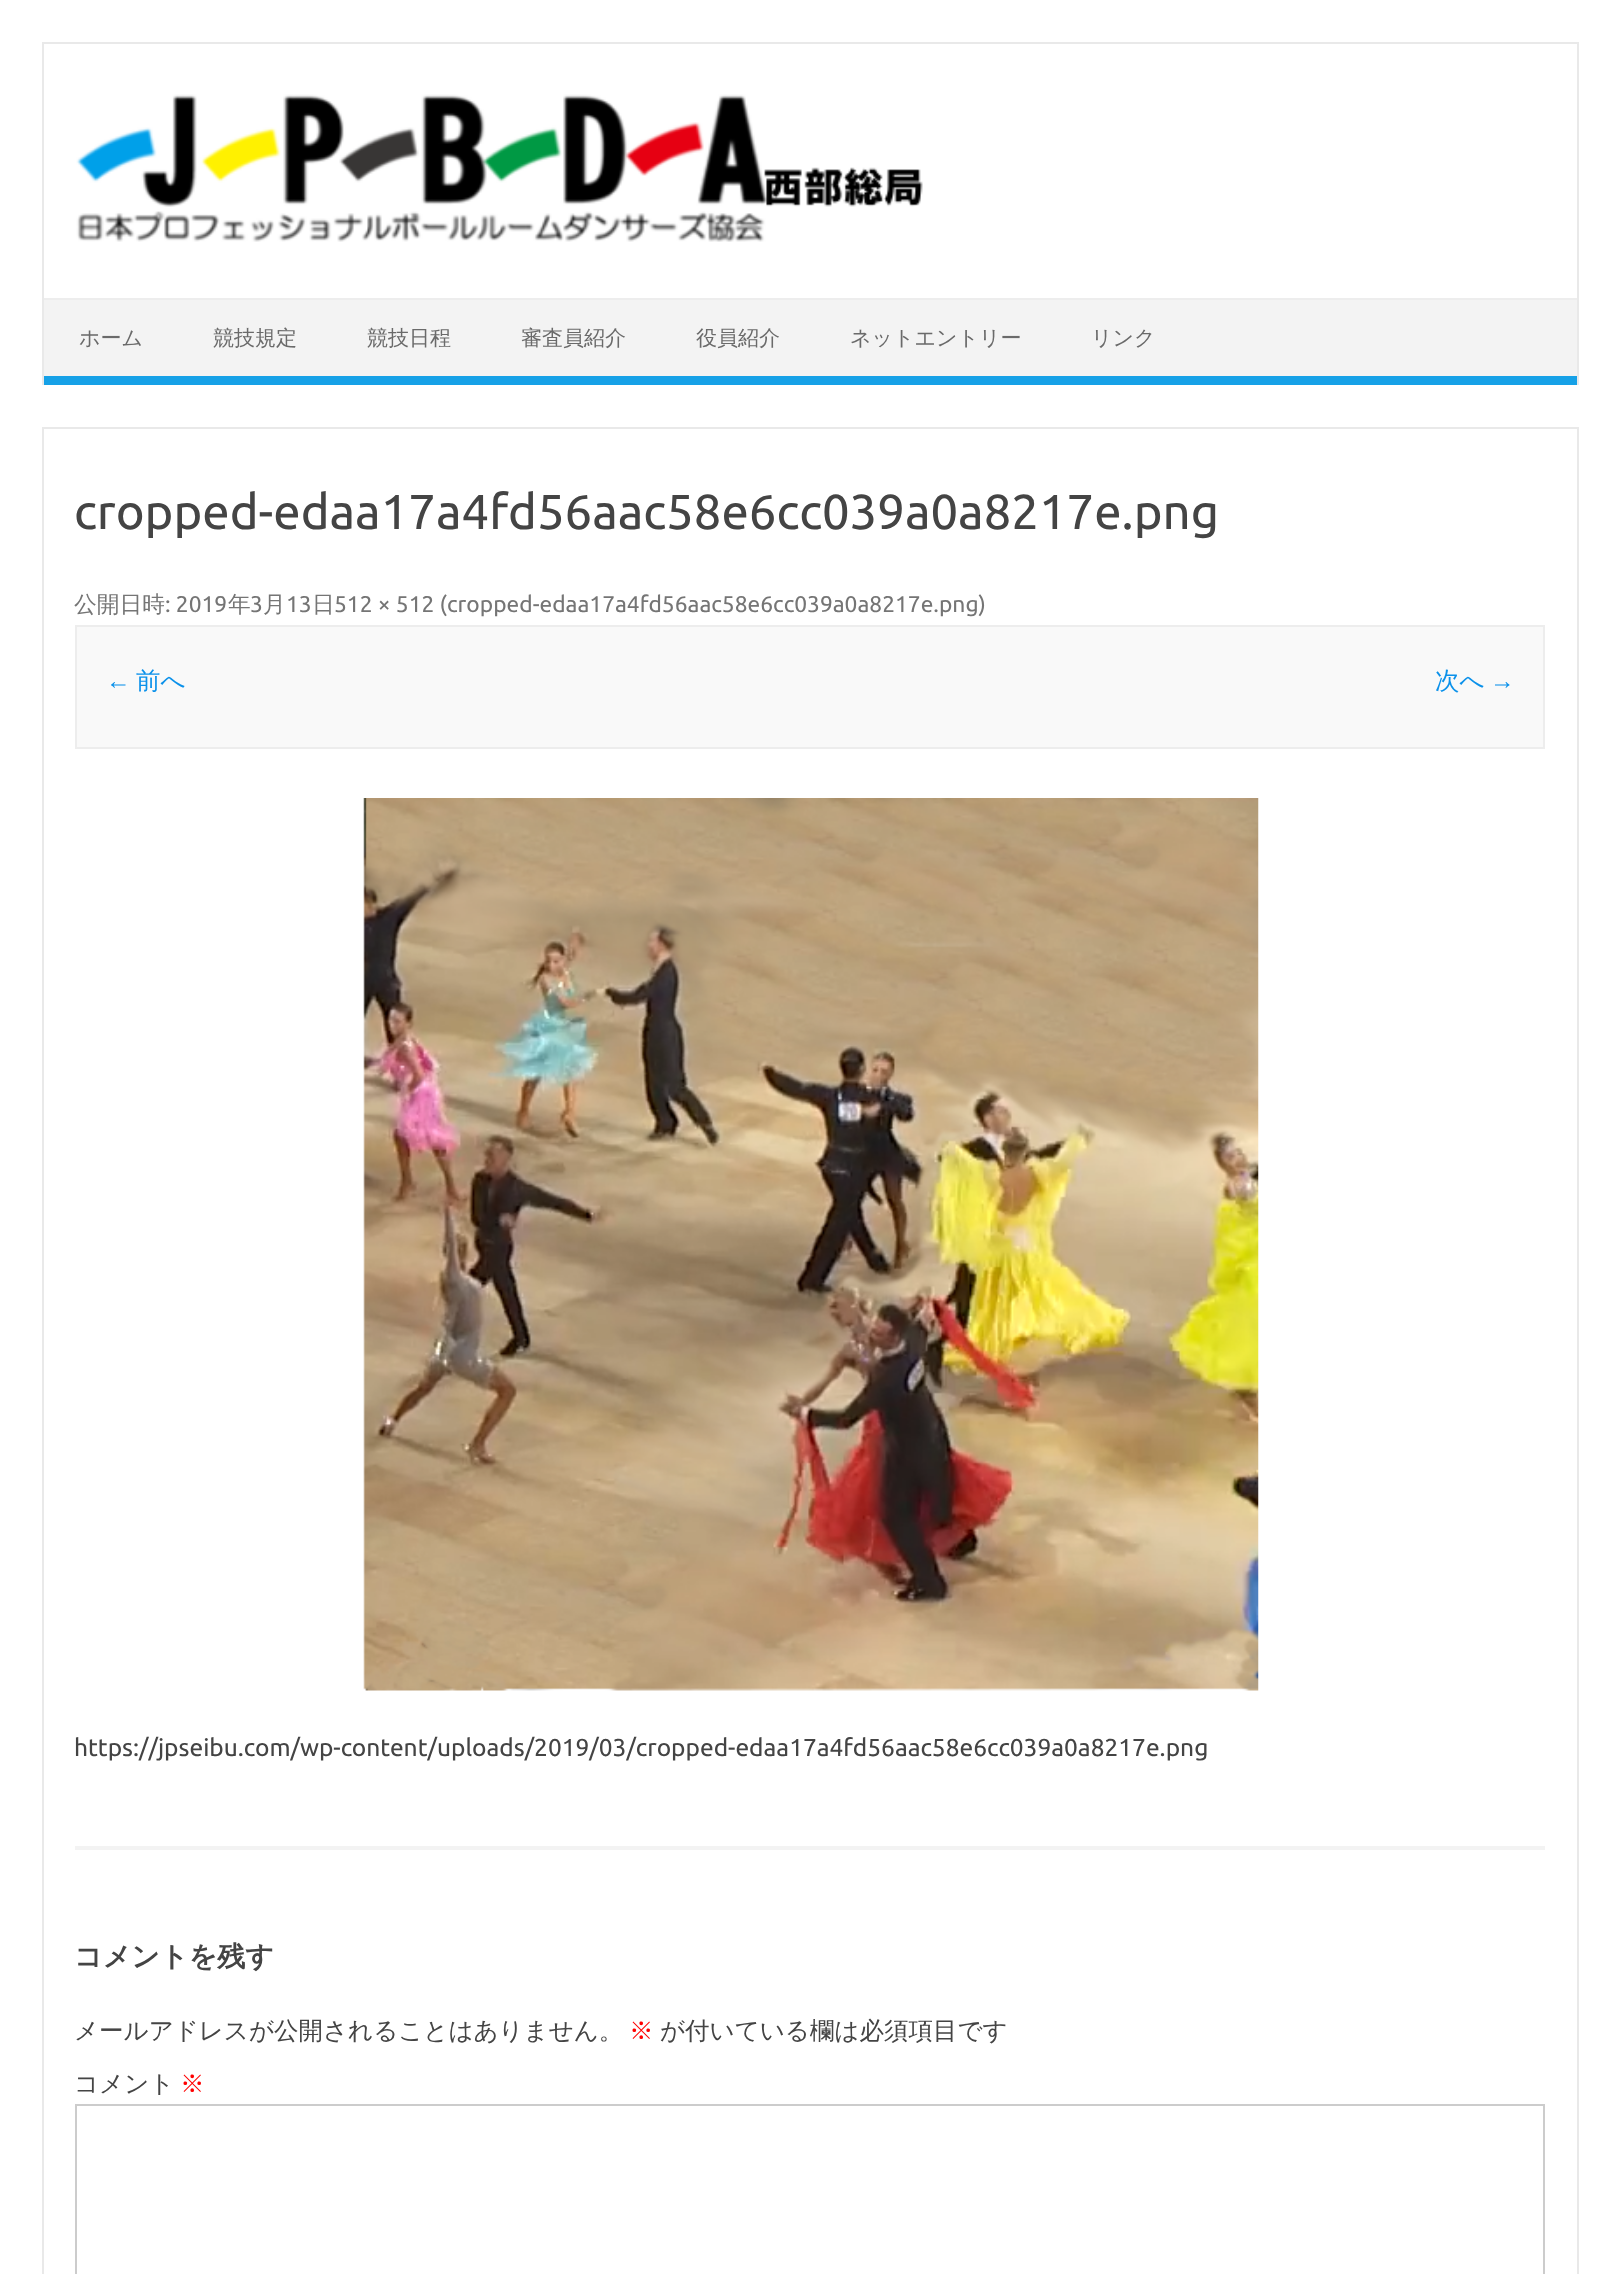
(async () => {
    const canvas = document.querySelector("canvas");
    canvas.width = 1619;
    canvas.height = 2274;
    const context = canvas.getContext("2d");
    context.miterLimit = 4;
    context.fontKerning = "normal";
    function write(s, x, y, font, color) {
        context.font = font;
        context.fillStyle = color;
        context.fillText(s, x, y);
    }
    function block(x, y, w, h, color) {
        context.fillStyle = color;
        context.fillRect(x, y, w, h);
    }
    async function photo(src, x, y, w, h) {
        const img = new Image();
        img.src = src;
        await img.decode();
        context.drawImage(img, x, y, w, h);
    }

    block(0, 0, 1619, 2274, "rgb(255, 255, 255)");
    block(42, 42, 1537, 2, "rgb(233, 233, 233)");
    block(1577, 42, 2, 343, "rgb(233, 233, 233)");
    block(42, 42, 2, 343, "rgb(233, 233, 233)");
    await photo("media/1.png", 76, 94, 847, 148);
    block(44, 300, 1533, 76, "rgb(243, 243, 243)");
    block(44, 298, 1533, 2, "rgb(237, 237, 237)");
    block(44, 376, 1533, 9, "rgb(22, 161, 231)");
    write("ホーム", 79, 345, "500 21px WenQuanYi Zen Hei", "rgb(106, 106, 106)");
    write("競技規定", 213, 345, "500 21px WenQuanYi Zen Hei", "rgb(106, 106, 106)");
    write("競技日程", 367, 345, "500 21px WenQuanYi Zen Hei", "rgb(106, 106, 106)");
    write("審査員紹介", 521, 345, "500 21px WenQuanYi Zen Hei", "rgb(106, 106, 106)");
    write("役員紹介", 696, 345, "500 21px WenQuanYi Zen Hei", "rgb(106, 106, 106)");
    write("ネットエントリー", 850, 345, "500 21px WenQuanYi Zen Hei", "rgb(106, 106, 106)");
    write("リンク", 1091, 345, "500 21px WenQuanYi Zen Hei", "rgb(106, 106, 106)");
    context.strokeStyle = "rgb(233, 233, 233)";
    context.lineWidth = 2;
    context.strokeRect(43, 428, 1535, 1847);
    block(75, 1846, 1470, 4, "rgb(243, 243, 243)");
    write("cropped-edaa17a4fd56aac58e6cc039a0a8217e.png", 74, 529, "49px Ubuntu", "rgb(68, 68, 68)");
    write("公開日時", 74, 612, "500 22.75px WenQuanYi Zen Hei", "rgb(117, 117, 117)");
    write(": 2019", 165, 612, "22.75px Ubuntu", "rgb(117, 117, 117)");
    write("年", 228, 612, "500 22.75px WenQuanYi Zen Hei", "rgb(117, 117, 117)");
    write("3", 250, 612, "22.75px Ubuntu", "rgb(117, 117, 117)");
    write("月", 263, 612, "500 22.75px WenQuanYi Zen Hei", "rgb(117, 117, 117)");
    write("13", 286, 612, "22.75px Ubuntu", "rgb(117, 117, 117)");
    write("日", 312, 612, "500 22.75px WenQuanYi Zen Hei", "rgb(117, 117, 117)");
    write("512 × 512 (cropped-edaa17a4fd56aac58e6cc039a0a8217e.png)", 334, 612, "22.75px Ubuntu", "rgb(117, 117, 117)");
    context.fillStyle = "rgb(249, 249, 249)";
    context.beginPath();
    context.rect(76, 626, 1468, 122);
    context.fill();
    context.strokeStyle = "rgb(237, 237, 237)";
    context.stroke();
    write("←", 106, 689, "24.5px Liberation Sans", "rgb(11, 145, 234)");
    write("前へ", 136, 689, "500 24.5px WenQuanYi Zen Hei", "rgb(11, 145, 234)");
    write("次へ", 1435, 689, "500 24.5px WenQuanYi Zen Hei", "rgb(11, 145, 234)");
    write("→", 1490, 689, "24.5px Liberation Sans", "rgb(11, 145, 234)");
    await photo("media/2.png", 363, 798, 896, 893);
    write("https://jpseibu.com/wp-content/uploads/2019/03/cropped-edaa17a4fd56aac58e6cc039a0a8217e.png", 74, 1756, "24.5px Ubuntu", "rgb(68, 68, 68)");
    write("コメントを残す", 74, 1966, "bold 28px WenQuanYi Zen Hei", "rgb(68, 68, 68)");
    write("メールアドレスが公開されることはありません。", 74, 2039, "500 24.5px WenQuanYi Zen Hei", "rgb(68, 68, 68)");
    write("※", 629, 2039, "500 24.5px WenQuanYi Zen Hei", "rgb(255, 0, 0)");
    write("が付いている欄は必須項目です", 660, 2039, "500 24.5px WenQuanYi Zen Hei", "rgb(68, 68, 68)");
    write("コメント", 74, 2092, "500 24.5px WenQuanYi Zen Hei", "rgb(68, 68, 68)");
    write("※", 180, 2092, "500 24.5px WenQuanYi Zen Hei", "rgb(255, 0, 0)");
    context.strokeStyle = "rgb(204, 204, 204)";
    context.strokeRect(76, 2105, 1468, 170);
})();
